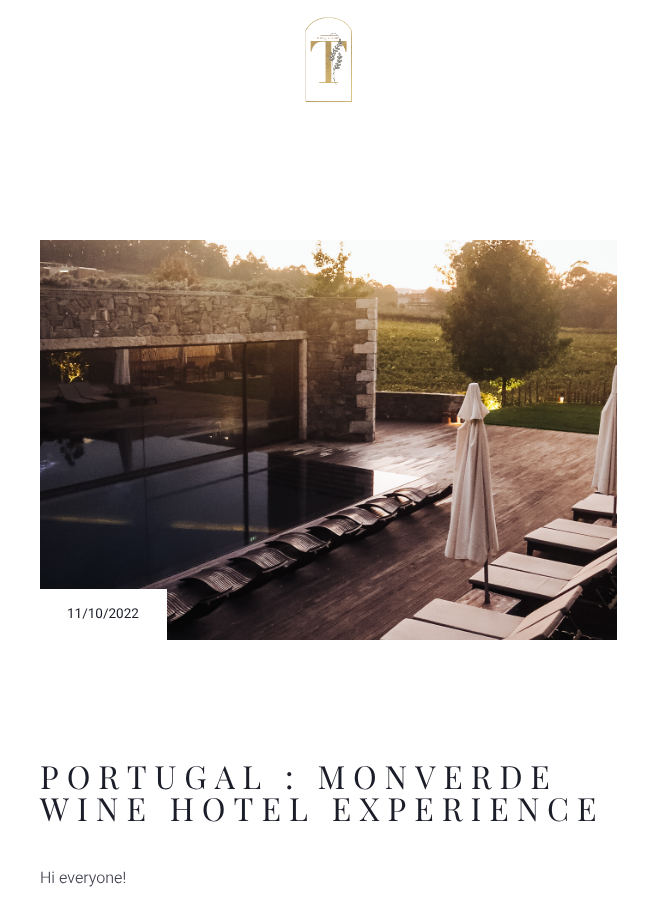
(async () => {
    const canvas = document.querySelector("canvas");
    canvas.width = 657;
    canvas.height = 922;
    const context = canvas.getContext("2d");
    context.miterLimit = 4;
    context.fontKerning = "normal";
    function write(s, x, y, font, color) {
        context.font = font;
        context.fillStyle = color;
        context.fillText(s, x, y);
    }
    function block(x, y, w, h, color) {
        context.fillStyle = color;
        context.fillRect(x, y, w, h);
    }
    async function photo(src, x, y, w, h) {
        const img = new Image();
        img.src = src;
        await img.decode();
        context.drawImage(img, x, y, w, h);
    }

    block(0, 0, 657, 922, "rgb(255, 255, 255)");
    await photo("media/1.png", 305, 17, 47, 85);
    await photo("media/2.png", 40, 240, 577, 400);
    block(40, 589, 127, 51, "rgb(255, 255, 255)");
    write("11/10/2022", 67, 618, "13.5px Heebo", "rgb(27, 29, 40)");
    context.letterSpacing = "8px";
    write("PORTUGAL : MONVERDE", 40, 789, "32px Playfair Display", "rgb(27, 29, 40)");
    write("WINE HOTEL EXPERIENCE", 40, 821, "32px Playfair Display", "rgb(27, 29, 40)");
    context.letterSpacing = "0px";
    write("Hi everyone!", 40, 883, "300 16px Heebo", "rgb(66, 68, 81)");
})();
